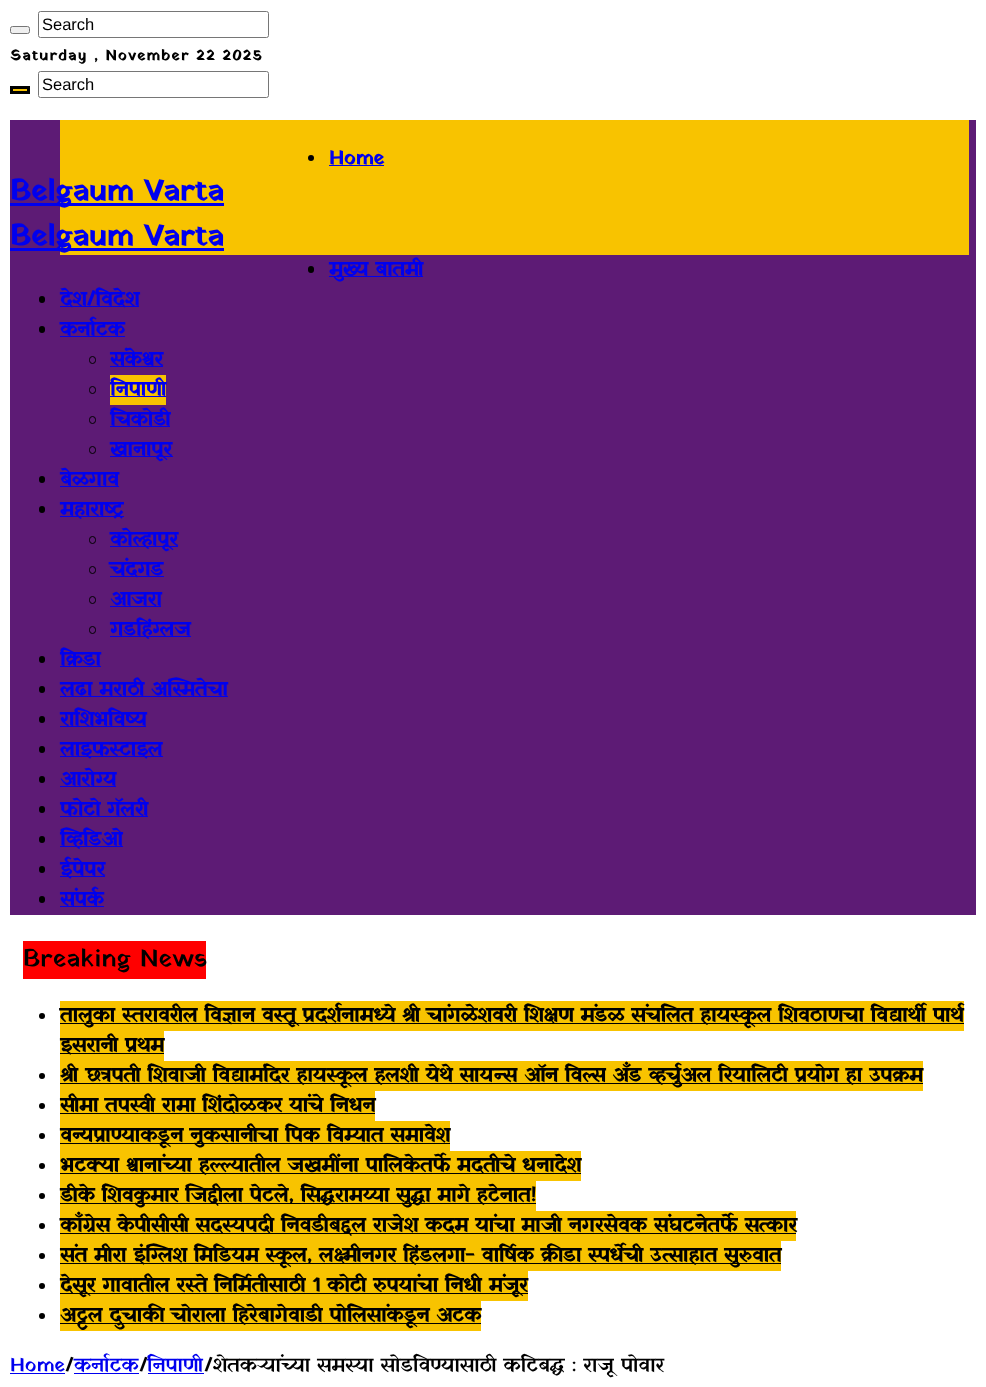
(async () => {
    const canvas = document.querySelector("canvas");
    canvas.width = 986;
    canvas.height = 1387;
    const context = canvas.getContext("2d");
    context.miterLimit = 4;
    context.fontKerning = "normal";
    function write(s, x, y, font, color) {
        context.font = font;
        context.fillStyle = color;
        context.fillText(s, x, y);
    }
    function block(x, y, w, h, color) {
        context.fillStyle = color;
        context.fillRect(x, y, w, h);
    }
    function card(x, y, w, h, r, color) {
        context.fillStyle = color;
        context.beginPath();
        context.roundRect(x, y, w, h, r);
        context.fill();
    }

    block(0, 0, 986, 1387, "rgb(255, 255, 255)");
    context.fillStyle = "rgb(239, 239, 239)";
    context.beginPath();
    context.roundRect(10.5, 26.5, 19, 7, 2);
    context.fill();
    context.strokeStyle = "rgb(118, 118, 118)";
    context.stroke();
    context.beginPath();
    context.roundRect(38.5, 11.5, 230, 26, 2);
    context.stroke();
    write("Search", 42, 30, "16.5px Liberation Sans", "rgb(0, 0, 0)");
    context.letterSpacing = "1.25px";
    write("Saturday , November 22 2025", 10, 60, "bold 15px Yatra One", "rgb(0, 0, 0)");
    context.fillStyle = "rgb(248, 195, 1)";
    context.beginPath();
    context.rect(11.5, 87.5, 17, 5);
    context.fill();
    context.strokeStyle = "rgb(0, 0, 0)";
    context.lineWidth = 3;
    context.stroke();
    context.beginPath();
    context.roundRect(38.5, 71.5, 230, 26, 2);
    context.strokeStyle = "rgb(118, 118, 118)";
    context.lineWidth = 1;
    context.stroke();
    context.letterSpacing = "0px";
    write("Search", 42, 90, "16.5px Liberation Sans", "rgb(0, 0, 0)");
    block(10, 120, 966, 795, "rgb(93, 27, 117)");
    block(60, 120, 909, 135, "rgb(248, 195, 0)");
    context.fillStyle = "rgb(0, 0, 0)";
    context.beginPath();
    context.arc(311, 158, 3, 0, Math.PI * 2);
    context.fill();
    write("Home", 329, 164, "bold 20px Yatra One", "rgb(0, 0, 238)");
    block(329, 165, 55, 1, "rgb(0, 0, 238)");
    card(308, 266, 6, 7, 3, "rgb(0, 0, 0)");
    block(329, 276, 94, 1, "rgb(0, 0, 238)");
    write("मुख्य बातमी", 329, 275, "bold 20px Yatra One", "rgb(0, 0, 238)");
    card(39, 296, 6, 7, 3, "rgb(0, 0, 0)");
    block(60, 306, 79, 1, "rgb(0, 0, 238)");
    write("देश/विदेश", 60, 305, "bold 20px Yatra One", "rgb(0, 0, 238)");
    card(39, 326, 6, 7, 3, "rgb(0, 0, 0)");
    block(60, 336, 65, 1, "rgb(0, 0, 238)");
    write("कर्नाटक", 60, 335, "bold 20px Yatra One", "rgb(0, 0, 238)");
    context.beginPath();
    context.roundRect(89.5, 356.5, 6, 7, 3);
    context.strokeStyle = "rgb(0, 0, 0)";
    context.stroke();
    block(110, 366, 53, 1, "rgb(0, 0, 238)");
    write("संकेश्वर", 110, 365, "bold 20px Yatra One", "rgb(0, 0, 238)");
    context.beginPath();
    context.roundRect(89.5, 386.5, 6, 7, 3);
    context.stroke();
    block(110, 375, 56, 30, "rgb(248, 195, 1)");
    block(110, 396, 56, 1, "rgb(0, 0, 238)");
    write("निपाणी", 110, 395, "bold 20px Yatra One", "rgb(0, 0, 238)");
    context.beginPath();
    context.roundRect(89.5, 416.5, 6, 7, 3);
    context.stroke();
    block(110, 426, 60, 1, "rgb(0, 0, 238)");
    write("चिकोडी", 110, 425, "bold 20px Yatra One", "rgb(0, 0, 238)");
    context.beginPath();
    context.roundRect(89.5, 446.5, 6, 7, 3);
    context.stroke();
    block(110, 456, 63, 1, "rgb(0, 0, 238)");
    write("खानापूर", 110, 455, "bold 20px Yatra One", "rgb(0, 0, 238)");
    card(39, 476, 6, 7, 3, "rgb(0, 0, 0)");
    block(60, 486, 59, 1, "rgb(0, 0, 238)");
    write("बेळगाव", 60, 485, "bold 20px Yatra One", "rgb(0, 0, 238)");
    card(39, 506, 6, 7, 3, "rgb(0, 0, 0)");
    block(60, 516, 64, 1, "rgb(0, 0, 238)");
    write("महाराष्ट्र", 60, 515, "bold 20px Yatra One", "rgb(0, 0, 238)");
    context.beginPath();
    context.roundRect(89.5, 536.5, 6, 7, 3);
    context.stroke();
    block(110, 546, 68, 1, "rgb(0, 0, 238)");
    write("कोल्हापूर", 110, 545, "bold 20px Yatra One", "rgb(0, 0, 238)");
    context.beginPath();
    context.roundRect(89.5, 566.5, 6, 7, 3);
    context.stroke();
    block(110, 576, 54, 1, "rgb(0, 0, 238)");
    write("चंदगड", 110, 575, "bold 20px Yatra One", "rgb(0, 0, 238)");
    context.beginPath();
    context.roundRect(89.5, 596.5, 6, 7, 3);
    context.stroke();
    block(110, 606, 51, 1, "rgb(0, 0, 238)");
    write("आजरा", 110, 605, "bold 20px Yatra One", "rgb(0, 0, 238)");
    context.beginPath();
    context.roundRect(89.5, 626.5, 6, 7, 3);
    context.stroke();
    block(110, 636, 81, 1, "rgb(0, 0, 238)");
    write("गडहिंग्लज", 110, 635, "bold 20px Yatra One", "rgb(0, 0, 238)");
    card(39, 656, 6, 7, 3, "rgb(0, 0, 0)");
    block(60, 666, 41, 1, "rgb(0, 0, 238)");
    write("क्रिडा", 60, 665, "bold 20px Yatra One", "rgb(0, 0, 238)");
    card(39, 686, 6, 7, 3, "rgb(0, 0, 0)");
    block(60, 696, 168, 1, "rgb(0, 0, 238)");
    write("लढा मराठी अस्मितेचा", 60, 695, "bold 20px Yatra One", "rgb(0, 0, 238)");
    card(39, 716, 6, 7, 3, "rgb(0, 0, 0)");
    block(60, 726, 86, 1, "rgb(0, 0, 238)");
    write("राशिभविष्य", 60, 725, "bold 20px Yatra One", "rgb(0, 0, 238)");
    card(39, 746, 6, 7, 3, "rgb(0, 0, 0)");
    block(60, 756, 103, 1, "rgb(0, 0, 238)");
    write("लाइफस्टाइल", 60, 755, "bold 20px Yatra One", "rgb(0, 0, 238)");
    card(39, 776, 6, 7, 3, "rgb(0, 0, 0)");
    block(60, 786, 56, 1, "rgb(0, 0, 238)");
    write("आरोग्य", 60, 785, "bold 20px Yatra One", "rgb(0, 0, 238)");
    card(39, 806, 6, 7, 3, "rgb(0, 0, 0)");
    block(60, 816, 88, 1, "rgb(0, 0, 238)");
    write("फोटो गॅलरी", 60, 815, "bold 20px Yatra One", "rgb(0, 0, 238)");
    card(39, 836, 6, 7, 3, "rgb(0, 0, 0)");
    block(60, 846, 63, 1, "rgb(0, 0, 238)");
    write("व्हिडिओ", 60, 845, "bold 20px Yatra One", "rgb(0, 0, 238)");
    card(39, 866, 6, 7, 3, "rgb(0, 0, 0)");
    block(60, 876, 45, 1, "rgb(0, 0, 238)");
    write("ईपेपर", 60, 875, "bold 20px Yatra One", "rgb(0, 0, 238)");
    card(39, 896, 6, 7, 3, "rgb(0, 0, 0)");
    block(60, 906, 44, 1, "rgb(0, 0, 238)");
    write("संपर्क", 60, 905, "bold 20px Yatra One", "rgb(0, 0, 238)");
    block(10, 203, 214, 3, "rgb(0, 0, 238)");
    write("Belgaum Varta", 10, 200, "bold 30px Yatra One", "rgb(0, 0, 238)");
    block(10, 248, 214, 3, "rgb(0, 0, 238)");
    write("Belgaum Varta", 10, 245, "bold 30px Yatra One", "rgb(0, 0, 238)");
    block(23, 941, 183, 38, "rgb(255, 0, 0)");
    write("Breaking News", 23, 966, "25px Yatra One", "rgb(0, 0, 0)");
    context.beginPath();
    context.arc(42, 1016, 3, 0, Math.PI * 2);
    context.fill();
    block(60, 1001, 904, 30, "rgb(248, 195, 0)");
    block(60, 1023, 904, 1, "rgb(0, 0, 0)");
    write("तालुका स्तरावरील विज्ञान वस्तू प्रदर्शनामध्ये श्री चांगळेशवरी शिक्षण मंडळ संचलित हायस्कूल शिवठाणचा विद्यार्थी पार्थ", 60, 1021, "bold 20px Yatra One", "rgb(0, 0, 0)");
    block(60, 1031, 104, 30, "rgb(248, 195, 0)");
    block(60, 1053, 104, 1, "rgb(0, 0, 0)");
    write("इसरानी प्रथम", 60, 1051, "bold 20px Yatra One", "rgb(0, 0, 0)");
    context.beginPath();
    context.arc(42, 1076, 3, 0, Math.PI * 2);
    context.fill();
    block(60, 1061, 863, 30, "rgb(248, 195, 0)");
    block(60, 1083, 863, 1, "rgb(0, 0, 0)");
    write("श्री छत्रपती शिवाजी विद्यामंदिर हायस्कूल हलशी येथे सायन्स ऑन विल्स अँड व्हर्चुअल रियालिटी प्रयोग हा उपक्रम", 60, 1081, "bold 20px Yatra One", "rgb(0, 0, 0)");
    context.beginPath();
    context.arc(42, 1106, 3, 0, Math.PI * 2);
    context.fill();
    block(60, 1091, 315, 30, "rgb(248, 195, 0)");
    block(60, 1113, 315, 1, "rgb(0, 0, 0)");
    write("सीमा तपस्वी रामा शिंदोळकर यांचे निधन", 60, 1111, "bold 20px Yatra One", "rgb(0, 0, 0)");
    context.beginPath();
    context.arc(42, 1136, 3, 0, Math.PI * 2);
    context.fill();
    block(60, 1121, 390, 30, "rgb(248, 195, 0)");
    block(60, 1143, 390, 1, "rgb(0, 0, 0)");
    write("वन्यप्राण्याकडून नुकसानीचा पिक विम्यात समावेश", 60, 1141, "bold 20px Yatra One", "rgb(0, 0, 0)");
    context.beginPath();
    context.arc(42, 1166, 3, 0, Math.PI * 2);
    context.fill();
    block(60, 1151, 521, 30, "rgb(248, 195, 0)");
    block(60, 1173, 521, 1, "rgb(0, 0, 0)");
    write("भटक्या श्वानांच्या हल्ल्यातील जखमींना पालिकेतर्फे मदतीचे धनादेश", 60, 1171, "bold 20px Yatra One", "rgb(0, 0, 0)");
    context.beginPath();
    context.arc(42, 1196, 3, 0, Math.PI * 2);
    context.fill();
    block(60, 1181, 476, 30, "rgb(248, 195, 0)");
    block(60, 1203, 476, 1, "rgb(0, 0, 0)");
    write("डीके शिवकुमार जिद्दीला पेटले, सिद्धरामय्या सुद्धा मागे हटेनात!", 60, 1201, "bold 20px Yatra One", "rgb(0, 0, 0)");
    context.beginPath();
    context.arc(42, 1226, 3, 0, Math.PI * 2);
    context.fill();
    block(60, 1211, 736, 30, "rgb(248, 195, 0)");
    block(60, 1233, 736, 1, "rgb(0, 0, 0)");
    write("काँग्रेस केपीसीसी सदस्यपदी निवडीबद्दल राजेश कदम यांचा माजी नगरसेवक संघटनेतर्फे सत्कार", 60, 1231, "bold 20px Yatra One", "rgb(0, 0, 0)");
    context.beginPath();
    context.arc(42, 1256, 3, 0, Math.PI * 2);
    context.fill();
    block(60, 1241, 721, 30, "rgb(248, 195, 0)");
    block(60, 1263, 721, 1, "rgb(0, 0, 0)");
    write("संत मीरा इंग्लिश मिडियम स्कूल, लक्ष्मीनगर हिंडलगा- वार्षिक क्रीडा स्पर्धेची उत्साहात सुरुवात", 60, 1261, "bold 20px Yatra One", "rgb(0, 0, 0)");
    context.beginPath();
    context.arc(42, 1286, 3, 0, Math.PI * 2);
    context.fill();
    block(60, 1271, 468, 30, "rgb(248, 195, 0)");
    block(60, 1293, 468, 1, "rgb(0, 0, 0)");
    write("देसूर गावातील रस्ते निर्मितीसाठी 1 कोटी रुपयांचा निधी मंजूर", 60, 1291, "bold 20px Yatra One", "rgb(0, 0, 0)");
    context.beginPath();
    context.arc(42, 1316, 3, 0, Math.PI * 2);
    context.fill();
    block(60, 1301, 421, 30, "rgb(248, 195, 0)");
    block(60, 1323, 421, 1, "rgb(0, 0, 0)");
    write("अट्टल दुचाकी चोराला हिरेबागेवाडी पोलिसांकडून अटक", 60, 1321, "bold 20px Yatra One", "rgb(0, 0, 0)");
    write("Home", 10, 1371, "20px Yatra One", "rgb(0, 0, 238)");
    block(10, 1373, 55, 1, "rgb(0, 0, 238)");
    write("/", 65, 1371, "20px Yatra One", "rgb(0, 0, 0)");
    write("कर्नाटक", 74, 1371, "20px Yatra One", "rgb(0, 0, 238)");
    block(74, 1373, 65, 1, "rgb(0, 0, 238)");
    write("/", 139, 1371, "20px Yatra One", "rgb(0, 0, 0)");
    write("निपाणी", 147, 1371, "20px Yatra One", "rgb(0, 0, 238)");
    block(148, 1373, 56, 1, "rgb(0, 0, 238)");
    write("/शेतकऱ्यांच्या समस्या सोडविण्यासाठी कटिबद्ध : राजू पोवार", 204, 1371, "20px Yatra One", "rgb(0, 0, 0)");
})();
